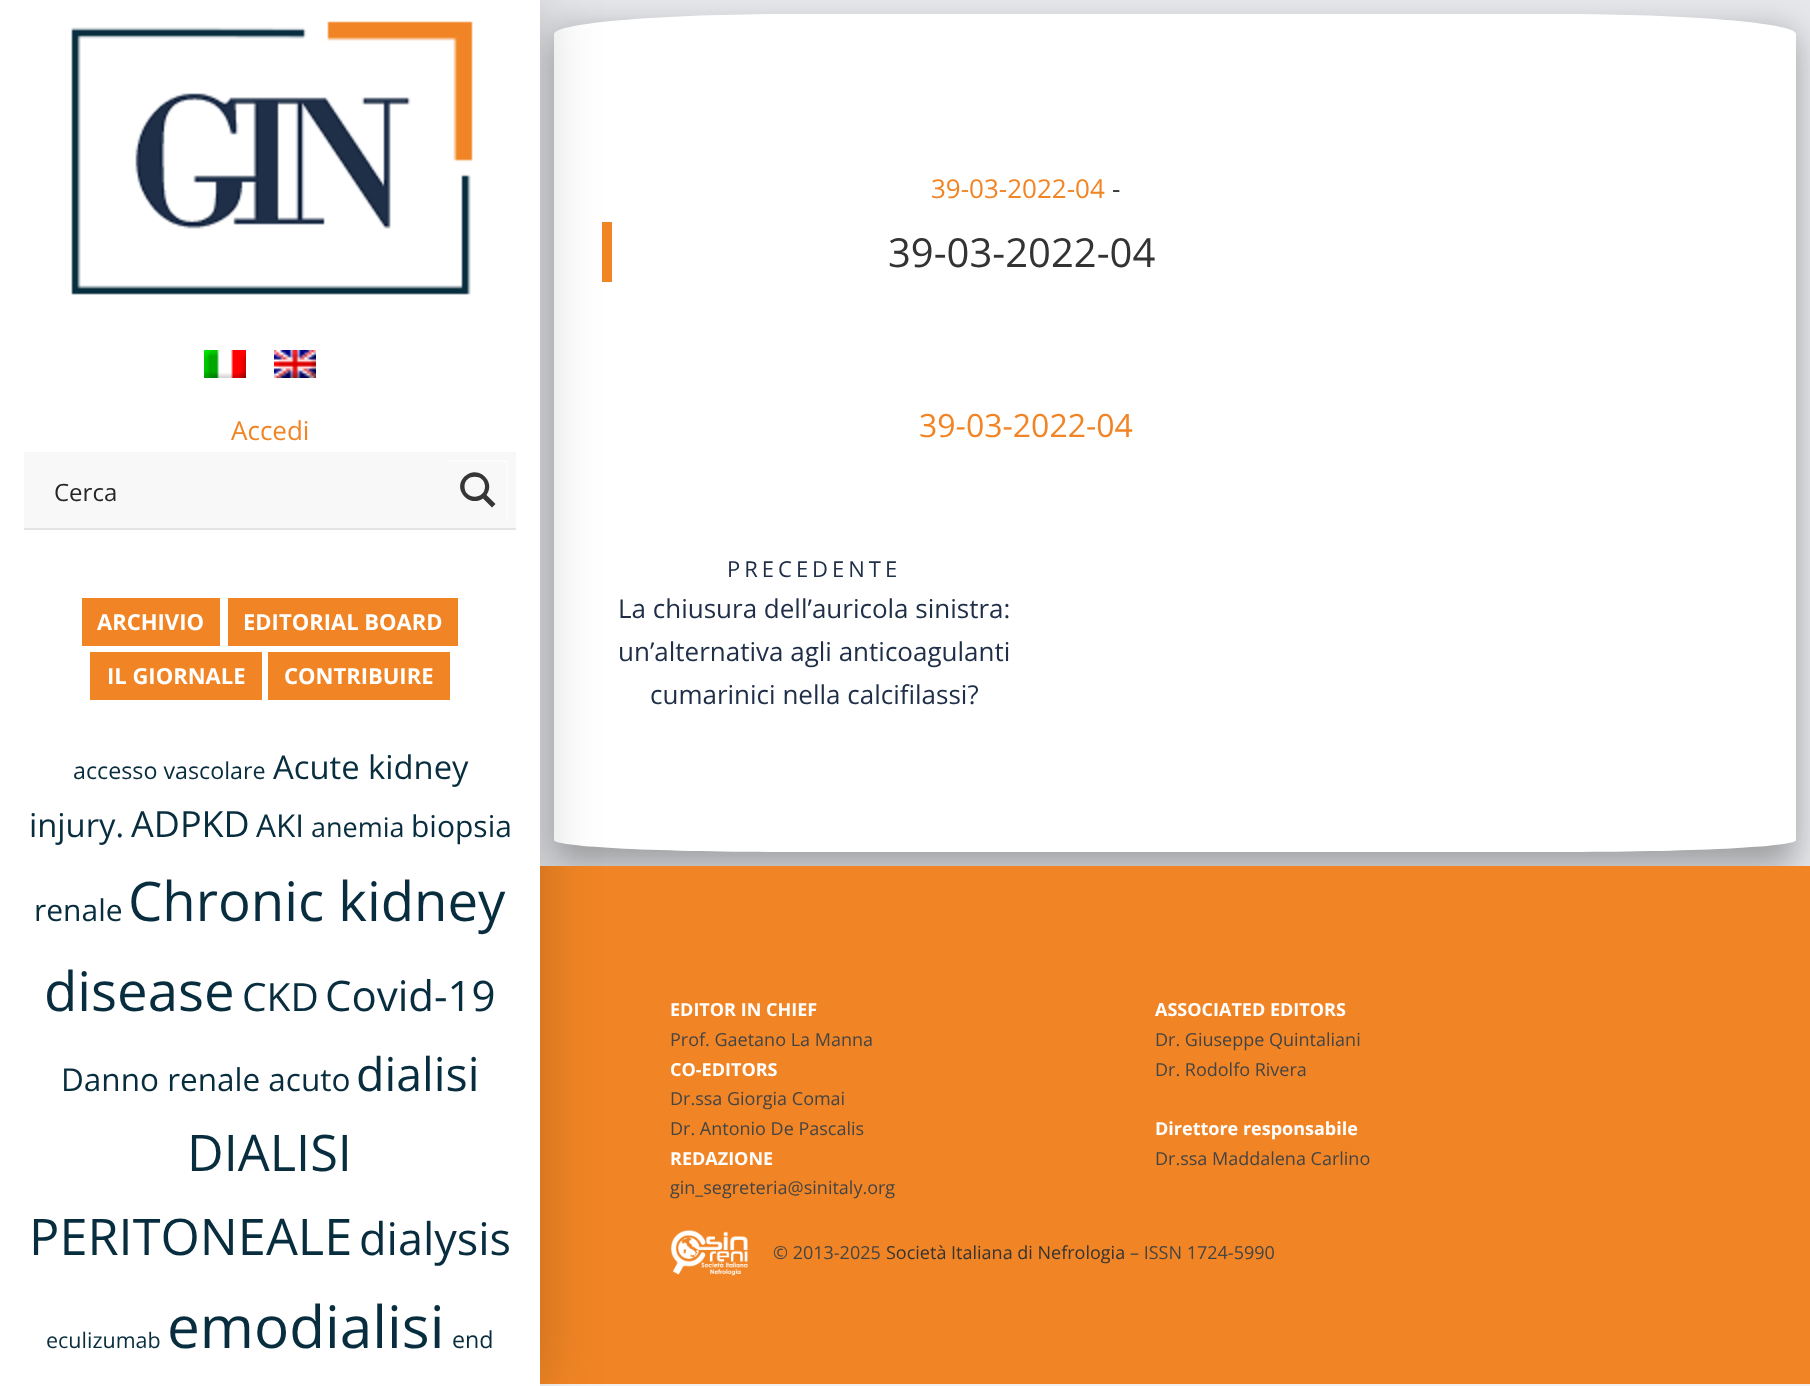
(async () => {
    const canvas = document.querySelector("canvas");
    canvas.width = 1810;
    canvas.height = 1386;
    const context = canvas.getContext("2d");
    context.miterLimit = 4;
    context.fontKerning = "normal";
    function write(s, x, y, font, color) {
        context.font = font;
        context.fillStyle = color;
        context.fillText(s, x, y);
    }
    function block(x, y, w, h, color) {
        context.fillStyle = color;
        context.fillRect(x, y, w, h);
    }
    async function photo(src, x, y, w, h) {
        const img = new Image();
        img.src = src;
        await img.decode();
        context.drawImage(img, x, y, w, h);
    }

    block(0, 0, 1810, 1386, "rgb(241, 241, 241)");
    block(540, 0, 1270, 866, "rgb(229, 231, 234)");
    context.fillStyle = "rgba(0, 0, 0, 0.3)";
    context.filter = "blur(16px)";
    context.beginPath();
    context.roundRect(554, 30, 1242, 838, 20);
    context.fill();
    context.filter = "none";
    context.fillStyle = "rgb(255, 255, 255)";
    context.beginPath();
    context.moveTo(794, 14);
    context.lineTo(1556, 14);
    context.bezierCurveTo(1689, 14, 1796, 23, 1796, 34);
    context.lineTo(1796, 840);
    context.bezierCurveTo(1796, 847, 1689, 852, 1556, 852);
    context.lineTo(794, 852);
    context.bezierCurveTo(661, 852, 554, 847, 554, 840);
    context.lineTo(554, 34);
    context.bezierCurveTo(554, 23, 661, 14, 794, 14);
    context.closePath();
    context.fill();
    block(602, 222, 10, 60, "rgb(241, 133, 37)");
    block(540, 866, 1270, 518, "rgb(241, 133, 37)");
    context.fillStyle = "rgba(0, 0, 0, 0.2)";
    context.filter = "blur(30px)";
    context.beginPath();
    context.rect(0, 0, 540, 1386);
    context.fill();
    context.filter = "none";
    block(0, 0, 540, 1386, "rgb(255, 255, 255)");
    await photo("media/1.png", 71, 21, 402, 274);
    await photo("media/2.png", 204, 350, 42, 28);
    await photo("media/3.png", 274, 350, 42, 28);
    write("Accedi", 231, 440, "26px Open Sans", "rgb(241, 133, 37)");
    block(24, 528, 492, 2, "rgb(228, 228, 228)");
    block(24, 452, 492, 76, "rgb(248, 248, 248)");
    write("Cerca", 54, 501, "24px Open Sans", "rgb(37, 37, 37)");
    context.save();
    context.beginPath();
    context.rect(448, 460, 60, 60);
    context.clip();
    context.fillStyle = "rgb(252, 252, 252)";
    context.beginPath();
    context.moveTo(250, 262);
    context.lineTo(706, 262);
    context.lineTo(706, 718);
    context.lineTo(250, 718);
    context.closePath();
    context.moveTo(446, 462);
    context.lineTo(506, 462);
    context.lineTo(506, 522);
    context.lineTo(446, 522);
    context.closePath();
    context.fill("evenodd");
    context.restore();
    context.fillStyle = "rgb(54, 54, 54)";
    context.beginPath();
    context.moveTo(495.5, 504);
    context.lineTo(486.5, 495);
    context.bezierCurveTo(496.5, 481, 477.5, 464, 464.5, 476.5);
    context.bezierCurveTo(452, 489, 469, 508, 483, 498.5);
    context.lineTo(492, 507.5);
    context.closePath();
    context.moveTo(464.5, 486.5);
    context.bezierCurveTo(464.5, 473.5, 485, 473.5, 485, 486.5);
    context.bezierCurveTo(485, 500, 464.5, 500, 464.5, 486.5);
    context.closePath();
    context.fill();
    block(82, 598, 138, 48, "rgb(241, 133, 37)");
    write("ARCHIVIO", 97, 630, "bold 22px Open Sans", "rgb(255, 255, 255)");
    block(228, 598, 230, 48, "rgb(241, 133, 37)");
    write("EDITORIAL BOARD", 243, 630, "bold 22px Open Sans", "rgb(255, 255, 255)");
    block(90, 652, 172, 48, "rgb(241, 133, 37)");
    write("IL GIORNALE", 107, 684, "bold 22px Open Sans", "rgb(255, 255, 255)");
    block(268, 652, 182, 48, "rgb(241, 133, 37)");
    write("CONTRIBUIRE", 284, 684, "bold 22px Open Sans", "rgb(255, 255, 255)");
    write("accesso vascolare", 73, 779, "23.25px Open Sans", "rgb(8, 45, 62)");
    write("Acute kidney", 273, 779, "32.75px Open Sans", "rgb(8, 45, 62)");
    write("injury.", 29, 837, "32.75px Open Sans", "rgb(8, 45, 62)");
    write("ADPKD", 131, 837, "36px Open Sans", "rgb(8, 45, 62)");
    write("AKI", 256, 837, "31.5px Open Sans", "rgb(8, 45, 62)");
    write("anemia", 311, 837, "27px Open Sans", "rgb(8, 45, 62)");
    write("biopsia", 411, 837, "30px Open Sans", "rgb(8, 45, 62)");
    write("renale", 34, 921, "30px Open Sans", "rgb(8, 45, 62)");
    write("Chronic kidney", 128, 921, "54.5px Open Sans", "rgb(8, 45, 62)");
    write("disease", 44, 1011, "54.5px Open Sans", "rgb(8, 45, 62)");
    write("CKD", 242, 1011, "39px Open Sans", "rgb(8, 45, 62)");
    write("Covid-19", 325, 1011, "42px Open Sans", "rgb(8, 45, 62)");
    write("Danno renale acuto", 61, 1091, "31.5px Open Sans", "rgb(8, 45, 62)");
    write("dialisi", 356, 1091, "46.5px Open Sans", "rgb(8, 45, 62)");
    write("DIALISI", 187, 1171, "50.5px Open Sans", "rgb(8, 45, 62)");
    write("PERITONEALE", 29, 1255, "50.5px Open Sans", "rgb(8, 45, 62)");
    write("dialysis", 359, 1255, "45px Open Sans", "rgb(8, 45, 62)");
    write("eculizumab", 46, 1348, "21.5px Open Sans", "rgb(8, 45, 62)");
    write("emodialisi", 167, 1348, "58.5px Open Sans", "rgb(8, 45, 62)");
    write("end", 452, 1348, "23.25px Open Sans", "rgb(8, 45, 62)");
    write("39-03-2022-04", 931, 198, "26px Open Sans", "rgb(241, 133, 37)");
    write("-", 1112, 198, "26px Open Sans", "rgb(51, 51, 51)");
    write("39-03-2022-04", 888, 267, "40px Open Sans", "rgb(51, 51, 51)");
    write("39-03-2022-04", 919, 437, "32px Open Sans", "rgb(241, 133, 37)");
    context.letterSpacing = "4px";
    write("PRECEDENTE", 727, 577, "22px Open Sans", "rgb(32, 47, 72)");
    context.letterSpacing = "0px";
    write("La chiusura dell’auricola sinistra:", 618, 618, "26px Open Sans", "rgb(32, 47, 72)");
    write("un’alternativa agli anticoagulanti", 618, 661, "26px Open Sans", "rgb(32, 47, 72)");
    write("cumarinici nella calcifilassi?", 650, 704, "26px Open Sans", "rgb(32, 47, 72)");
    write("EDITOR IN CHIEF", 670, 1016, "bold 18px Open Sans", "rgb(255, 255, 255)");
    write("Prof. Gaetano La Manna", 670, 1046, "18px Open Sans", "rgb(68, 68, 68)");
    write("CO-EDITORS", 670, 1076, "bold 18px Open Sans", "rgb(255, 255, 255)");
    write("Dr.ssa Giorgia Comai", 670, 1105, "18px Open Sans", "rgb(68, 68, 68)");
    write("Dr. Antonio De Pascalis", 670, 1135, "18px Open Sans", "rgb(68, 68, 68)");
    write("REDAZIONE", 670, 1165, "bold 18px Open Sans", "rgb(255, 255, 255)");
    write("gin_segreteria@sinitaly.org", 670, 1194, "18px Open Sans", "rgb(68, 68, 68)");
    write("ASSOCIATED EDITORS", 1155, 1016, "bold 18px Open Sans", "rgb(255, 255, 255)");
    write("Dr. Giuseppe Quintaliani", 1155, 1046, "18px Open Sans", "rgb(68, 68, 68)");
    write("Dr. Rodolfo Rivera", 1155, 1076, "18px Open Sans", "rgb(68, 68, 68)");
    write("Direttore responsabile", 1155, 1135, "bold 18px Open Sans", "rgb(255, 255, 255)");
    write("Dr.ssa Maddalena Carlino", 1155, 1165, "18px Open Sans", "rgb(68, 68, 68)");
    await photo("media/4.png", 670, 1230, 78, 46);
    write("© 2013-2025", 773, 1259, "18px Open Sans", "rgb(68, 68, 68)");
    write("Società Italiana di Nefrologia", 886, 1259, "18px Open Sans", "rgb(51, 51, 51)");
    write("– ISSN 1724-5990", 1130, 1259, "18px Open Sans", "rgb(68, 68, 68)");
})();
